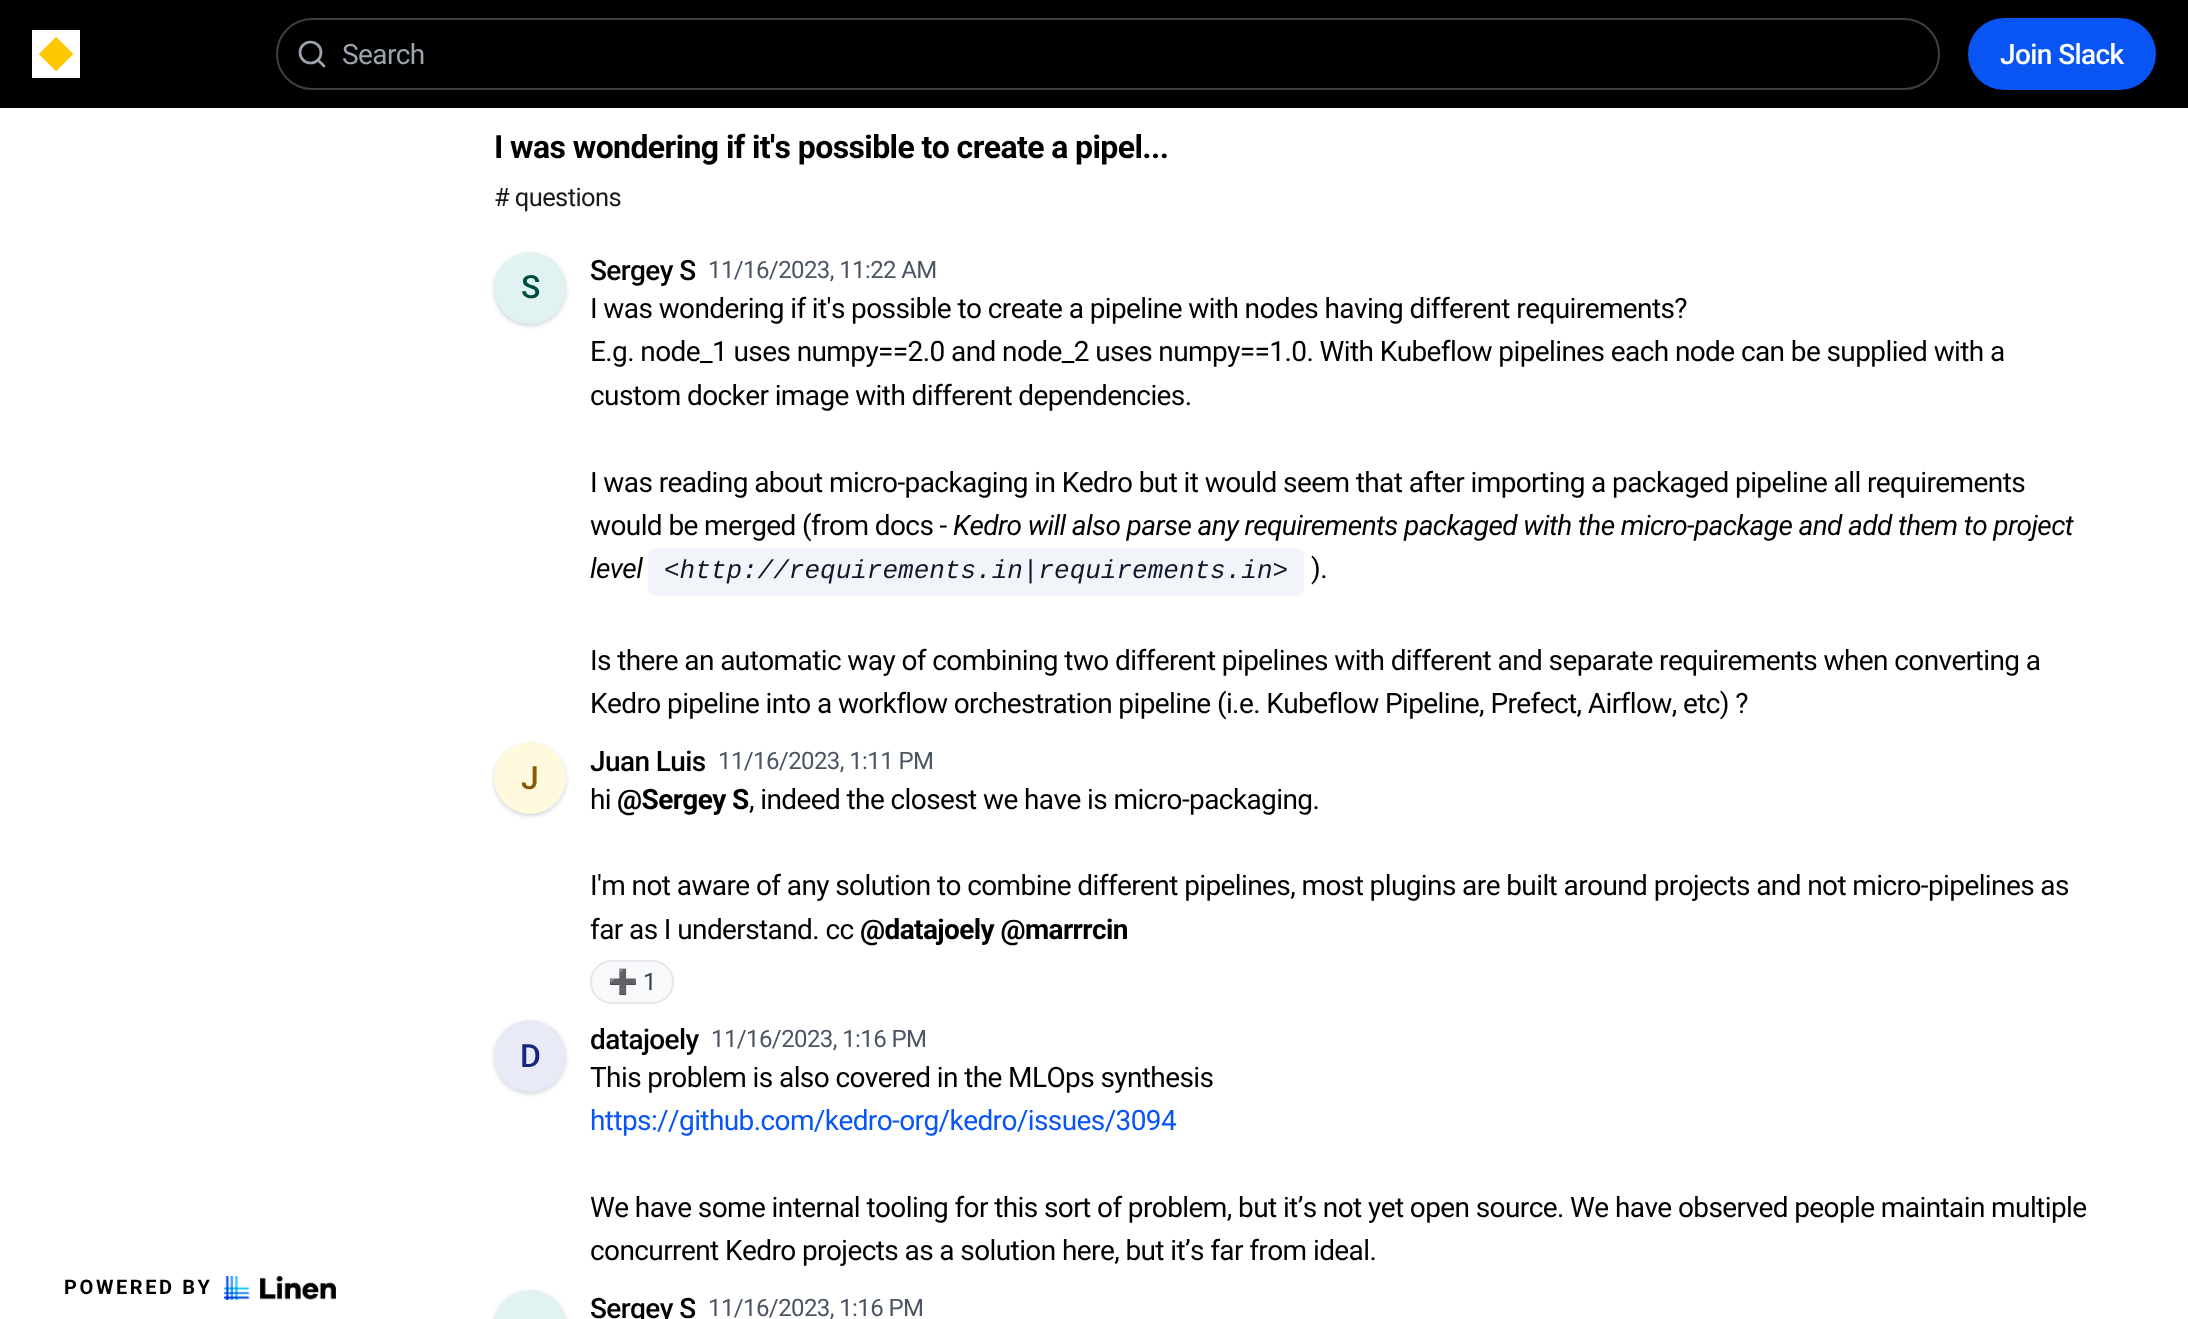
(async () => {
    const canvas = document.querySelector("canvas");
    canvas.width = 2188;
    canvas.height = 1319;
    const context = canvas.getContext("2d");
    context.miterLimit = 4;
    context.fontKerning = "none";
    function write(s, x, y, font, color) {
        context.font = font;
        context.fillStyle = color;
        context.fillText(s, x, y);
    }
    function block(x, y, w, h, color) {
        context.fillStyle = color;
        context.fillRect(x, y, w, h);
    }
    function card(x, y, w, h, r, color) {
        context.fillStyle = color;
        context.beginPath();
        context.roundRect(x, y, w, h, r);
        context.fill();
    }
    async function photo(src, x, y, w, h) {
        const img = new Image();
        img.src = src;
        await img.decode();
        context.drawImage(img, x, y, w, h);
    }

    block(0, 0, 2188, 1319, "rgb(255, 255, 255)");
    block(0, 0, 2188, 108, "rgb(0, 0, 0)");
    await photo("media/1.png", 32, 30, 48, 48);
    context.beginPath();
    context.roundRect(277, 19, 1662, 70, 35);
    context.strokeStyle = "rgb(64, 64, 64)";
    context.lineWidth = 2;
    context.stroke();
    context.beginPath();
    context.arc(310.5, 52.5, 10.5, 0, Math.PI * 2);
    context.strokeStyle = "rgb(156, 163, 175)";
    context.lineWidth = 2.7;
    context.stroke();
    context.beginPath();
    context.moveTo(324, 66);
    context.lineTo(318, 60);
    context.lineCap = "round";
    context.lineJoin = "round";
    context.stroke();
    context.letterSpacing = "-0.6px";
    write("Search", 342, 64, "28px Roboto", "rgb(156, 163, 175)");
    card(1968, 18, 188, 72, 36, "rgb(8, 85, 244)");
    write("Join Slack", 2000, 64, "500 28px Roboto", "rgb(255, 255, 255)");
    context.letterSpacing = "2.6px";
    write("POWERED BY", 64, 1294, "bold 20px Roboto", "rgb(0, 0, 0)");
    await photo("media/2.png", 224, 1276, 112, 24);
    context.letterSpacing = "-0.6px";
    write("I was wondering if it's possible to create a pipel...", 494, 158, "bold 32px Roboto", "rgb(0, 0, 0)");
    write("# questions", 494, 206, "25.5px Roboto", "rgb(26, 26, 26)");
    context.fillStyle = "rgb(209, 213, 219)";
    context.filter = "blur(2px)";
    context.beginPath();
    context.roundRect(494, 254, 72, 72, 36);
    context.fill();
    context.filter = "none";
    context.fillStyle = "rgb(224, 242, 241)";
    context.beginPath();
    context.arc(530, 288, 36, 0, Math.PI * 2);
    context.fill();
    write("S", 521, 298, "500 32px Roboto", "rgb(0, 77, 64)");
    write("Sergey S", 590, 280, "500 28px Roboto", "rgb(0, 0, 0)");
    write("11/16/2023, 11:22 AM", 708, 278, "24px Roboto", "rgb(75, 85, 99)");
    write("I was wondering if it's possible to create a pipeline with nodes having different requirements?", 590, 318, "28px Roboto", "rgb(0, 0, 0)");
    write("E.g. node_1 uses numpy==2.0 and node_2 uses numpy==1.0. With Kubeflow pipelines each node can be supplied with a", 590, 361, "28px Roboto", "rgb(0, 0, 0)");
    write("custom docker image with different dependencies.", 590, 405, "28px Roboto", "rgb(0, 0, 0)");
    write("I was reading about micro-packaging in Kedro but it would seem that after importing a packaged pipeline all requirements", 590, 492, "28px Roboto", "rgb(0, 0, 0)");
    write("would be merged (from docs -", 590, 535, "28px Roboto", "rgb(0, 0, 0)");
    write("Kedro will also parse any requirements packaged with the micro-package and add them to project", 953, 535, "italic 28px Roboto", "rgb(0, 0, 0)");
    write("level", 590, 578, "italic 28px Roboto", "rgb(0, 0, 0)");
    card(648, 548, 656, 48, 8, "rgb(241, 245, 249)");
    context.letterSpacing = "0px";
    write("<http://requirements.in|requirements.in>", 664, 578, "italic 26px Liberation Mono", "rgb(15, 23, 42)");
    context.letterSpacing = "-0.6px";
    write(").", 1311, 578, "28px Roboto", "rgb(0, 0, 0)");
    write("Is there an automatic way of combining two different pipelines with different and separate requirements when converting a", 590, 670, "28px Roboto", "rgb(0, 0, 0)");
    write("Kedro pipeline into a workflow orchestration pipeline (i.e. Kubeflow Pipeline, Prefect, Airflow, etc) ?", 590, 713, "28px Roboto", "rgb(0, 0, 0)");
    context.fillStyle = "rgb(209, 213, 219)";
    context.filter = "blur(2px)";
    context.beginPath();
    context.roundRect(494, 744, 72, 72, 36);
    context.fill();
    context.filter = "none";
    context.fillStyle = "rgb(255, 249, 222)";
    context.beginPath();
    context.arc(530, 778, 36, 0, Math.PI * 2);
    context.fill();
    write("J", 521, 789, "500 32px Roboto", "rgb(132, 92, 7)");
    write("Juan Luis", 590, 771, "500 28px Roboto", "rgb(0, 0, 0)");
    write("11/16/2023, 1:11 PM", 718, 769, "24px Roboto", "rgb(75, 85, 99)");
    write("hi", 590, 809, "28px Roboto", "rgb(0, 0, 0)");
    write("@Sergey S", 617, 809, "bold 28px Roboto", "rgb(0, 0, 0)");
    write(", indeed the closest we have is micro-packaging.", 749, 809, "28px Roboto", "rgb(0, 0, 0)");
    write("I'm not aware of any solution to combine different pipelines, most plugins are built around projects and not micro-pipelines as", 590, 895, "28px Roboto", "rgb(0, 0, 0)");
    write("far as I understand. cc", 590, 939, "28px Roboto", "rgb(0, 0, 0)");
    write("@datajoely @marrrcin", 860, 939, "bold 28px Roboto", "rgb(0, 0, 0)");
    context.fillStyle = "rgb(249, 250, 251)";
    context.beginPath();
    context.roundRect(591, 961, 82, 42, 21);
    context.fill();
    context.strokeStyle = "rgb(229, 231, 235)";
    context.lineWidth = 2;
    context.lineJoin = "miter";
    context.stroke();
    write("➕", 608, 990, "24px Noto Color Emoji", "rgb(55, 65, 81)");
    write("1", 643, 990, "24px Roboto", "rgb(55, 65, 81)");
    context.fillStyle = "rgb(209, 213, 219)";
    context.filter = "blur(2px)";
    context.beginPath();
    context.roundRect(494, 1022, 72, 72, 36);
    context.fill();
    context.filter = "none";
    context.fillStyle = "rgb(232, 234, 246)";
    context.beginPath();
    context.arc(530, 1056, 36, 0, Math.PI * 2);
    context.fill();
    write("D", 520, 1067, "500 32px Roboto", "rgb(26, 35, 126)");
    write("datajoely", 590, 1049, "500 28px Roboto", "rgb(0, 0, 0)");
    write("11/16/2023, 1:16 PM", 711, 1047, "24px Roboto", "rgb(75, 85, 99)");
    write("This problem is also covered in the MLOps synthesis", 590, 1087, "28px Roboto", "rgb(0, 0, 0)");
    write("https://github.com/kedro-org/kedro/issues/3094", 590, 1130, "28px Roboto", "rgb(8, 85, 244)");
    write("We have some internal tooling for this sort of problem, but it’s not yet open source. We have observed people maintain multiple", 590, 1217, "28px Roboto", "rgb(0, 0, 0)");
    write("concurrent Kedro projects as a solution here, but it’s far from ideal.", 590, 1260, "28px Roboto", "rgb(0, 0, 0)");
    context.fillStyle = "rgb(209, 213, 219)";
    context.filter = "blur(2px)";
    context.beginPath();
    context.roundRect(494, 1292, 72, 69, 36);
    context.fill();
    context.filter = "none";
    context.fillStyle = "rgb(224, 242, 241)";
    context.beginPath();
    context.moveTo(530, 1290);
    context.bezierCurveTo(550, 1290, 566, 1306, 566, 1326);
    context.lineTo(566, 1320);
    context.lineTo(494, 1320);
    context.lineTo(494, 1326);
    context.bezierCurveTo(494, 1306, 510, 1290, 530, 1290);
    context.closePath();
    context.fill();
    write("Sergey S", 590, 1318, "500 28px Roboto", "rgb(0, 0, 0)");
    write("11/16/2023, 1:16 PM", 708, 1316, "24px Roboto", "rgb(75, 85, 99)");
})();
